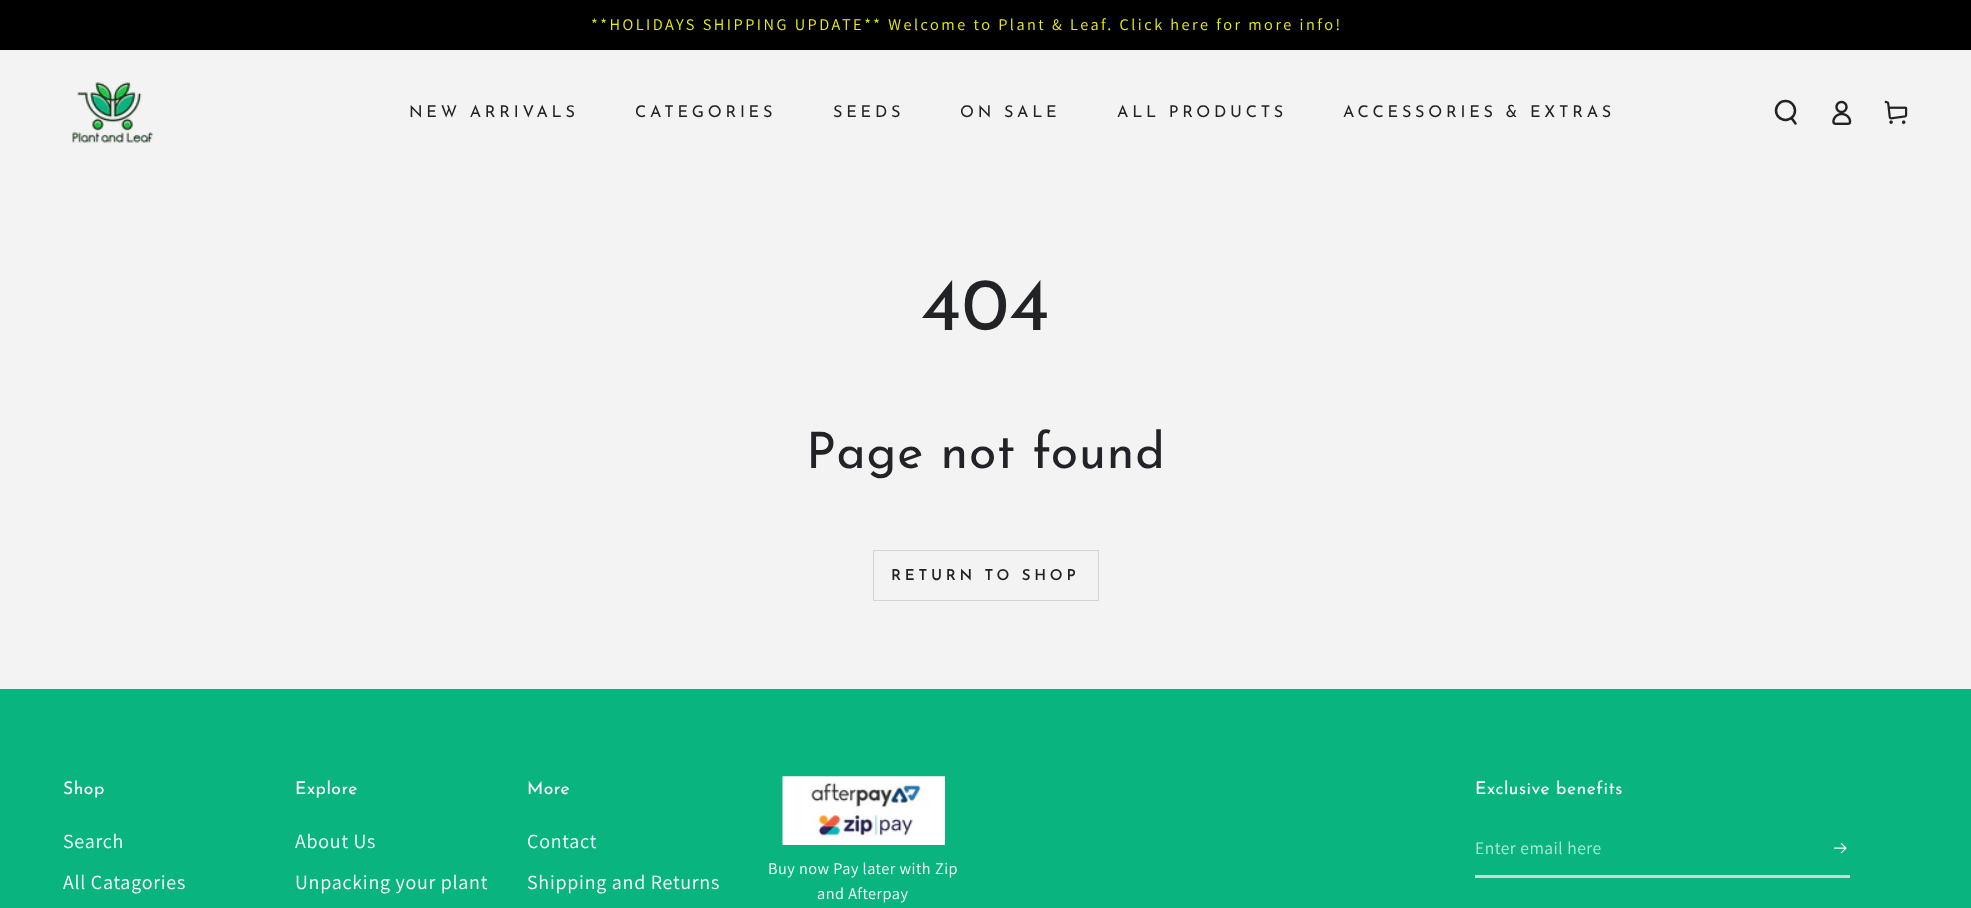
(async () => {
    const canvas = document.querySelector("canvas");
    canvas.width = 1971;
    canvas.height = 908;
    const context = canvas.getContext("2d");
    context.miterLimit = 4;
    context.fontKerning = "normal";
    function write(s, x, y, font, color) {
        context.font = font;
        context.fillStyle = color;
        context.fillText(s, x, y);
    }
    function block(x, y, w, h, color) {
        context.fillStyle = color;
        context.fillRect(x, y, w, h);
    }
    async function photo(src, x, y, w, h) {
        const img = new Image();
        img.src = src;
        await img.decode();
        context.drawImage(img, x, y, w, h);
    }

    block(0, 0, 1971, 908, "rgb(243, 243, 243)");
    block(0, 0, 1971, 50, "rgb(0, 0, 0)");
    context.letterSpacing = "2.5px";
    write("**HOLIDAYS SHIPPING UPDATE** Welcome to Plant & Leaf. Click here for more info!", 591, 30, "16.25px Assistant", "rgb(236, 240, 16)");
    await photo("media/1.png", 72, 82, 81, 61);
    context.letterSpacing = "3.75px";
    write("NEW ARRIVALS", 409, 117, "16.25px Josefin Sans", "rgb(33, 35, 38)");
    write("CATEGORIES", 635, 117, "16.25px Josefin Sans", "rgb(33, 35, 38)");
    write("SEEDS", 833, 117, "16.25px Josefin Sans", "rgb(33, 35, 38)");
    write("ON SALE", 960, 117, "16.25px Josefin Sans", "rgb(33, 35, 38)");
    write("ALL PRODUCTS", 1117, 117, "16.25px Josefin Sans", "rgb(33, 35, 38)");
    write("ACCESSORIES & EXTRAS", 1343, 117, "16.25px Josefin Sans", "rgb(33, 35, 38)");
    context.beginPath();
    context.arc(1785.5, 110.5, 9.5, 0, Math.PI * 2);
    context.strokeStyle = "rgb(33, 35, 38)";
    context.lineWidth = 2.5;
    context.stroke();
    context.beginPath();
    context.moveTo(1791.5, 118);
    context.lineTo(1795.5, 123.5);
    context.lineCap = "round";
    context.stroke();
    await photo("media/2.png", 1832, 100, 20, 25);
    await photo("media/3.png", 1884, 100, 24, 24);
    context.letterSpacing = "0.75px";
    write("404", 921, 330, "75px Josefin Sans", "rgb(33, 35, 38)");
    write("Page not found", 806, 468, "50px Josefin Sans", "rgb(33, 35, 38)");
    context.strokeStyle = "rgb(210, 213, 217)";
    context.lineWidth = 1;
    context.strokeRect(873.5, 550.5, 225, 50);
    context.letterSpacing = "3.75px";
    write("RETURN TO SHOP", 891, 580, "600 15px Josefin Sans", "rgb(33, 35, 38)");
    block(0, 689, 1971, 219, "rgb(10, 180, 127)");
    context.letterSpacing = "0.5px";
    write("Shop", 63, 794, "17.5px Josefin Sans", "rgb(255, 255, 255)");
    context.letterSpacing = "0.75px";
    write("Search", 63, 848, "20px Assistant", "rgb(255, 255, 255)");
    write("All Catagories", 63, 889, "20px Assistant", "rgb(255, 255, 255)");
    context.letterSpacing = "0.5px";
    write("Explore", 295, 794, "17.5px Josefin Sans", "rgb(255, 255, 255)");
    context.letterSpacing = "0.75px";
    write("About Us", 295, 848, "20px Assistant", "rgb(255, 255, 255)");
    write("Unpacking your plant", 295, 889, "20px Assistant", "rgb(255, 255, 255)");
    context.letterSpacing = "0.5px";
    write("More", 527, 794, "17.5px Josefin Sans", "rgb(255, 255, 255)");
    context.letterSpacing = "0.75px";
    write("Contact", 527, 848, "20px Assistant", "rgb(255, 255, 255)");
    write("Shipping and Returns", 527, 889, "20px Assistant", "rgb(255, 255, 255)");
    await photo("media/4.png", 782, 776, 163, 69);
    context.letterSpacing = "0.5px";
    write("Buy now Pay later with Zip", 768, 874, "16.25px Assistant", "rgb(255, 255, 255)");
    write("and Afterpay", 817, 899, "16.25px Assistant", "rgb(255, 255, 255)");
    write("Exclusive benefits", 1475, 794, "17.5px Josefin Sans", "rgb(255, 255, 255)");
    block(1475, 875, 375, 3, "rgb(210, 213, 217)");
    write("Enter email here", 1475, 854, "17.5px Assistant", "rgb(182, 233, 217)");
    await photo("media/5.png", 1834, 843, 13, 11);
})();
